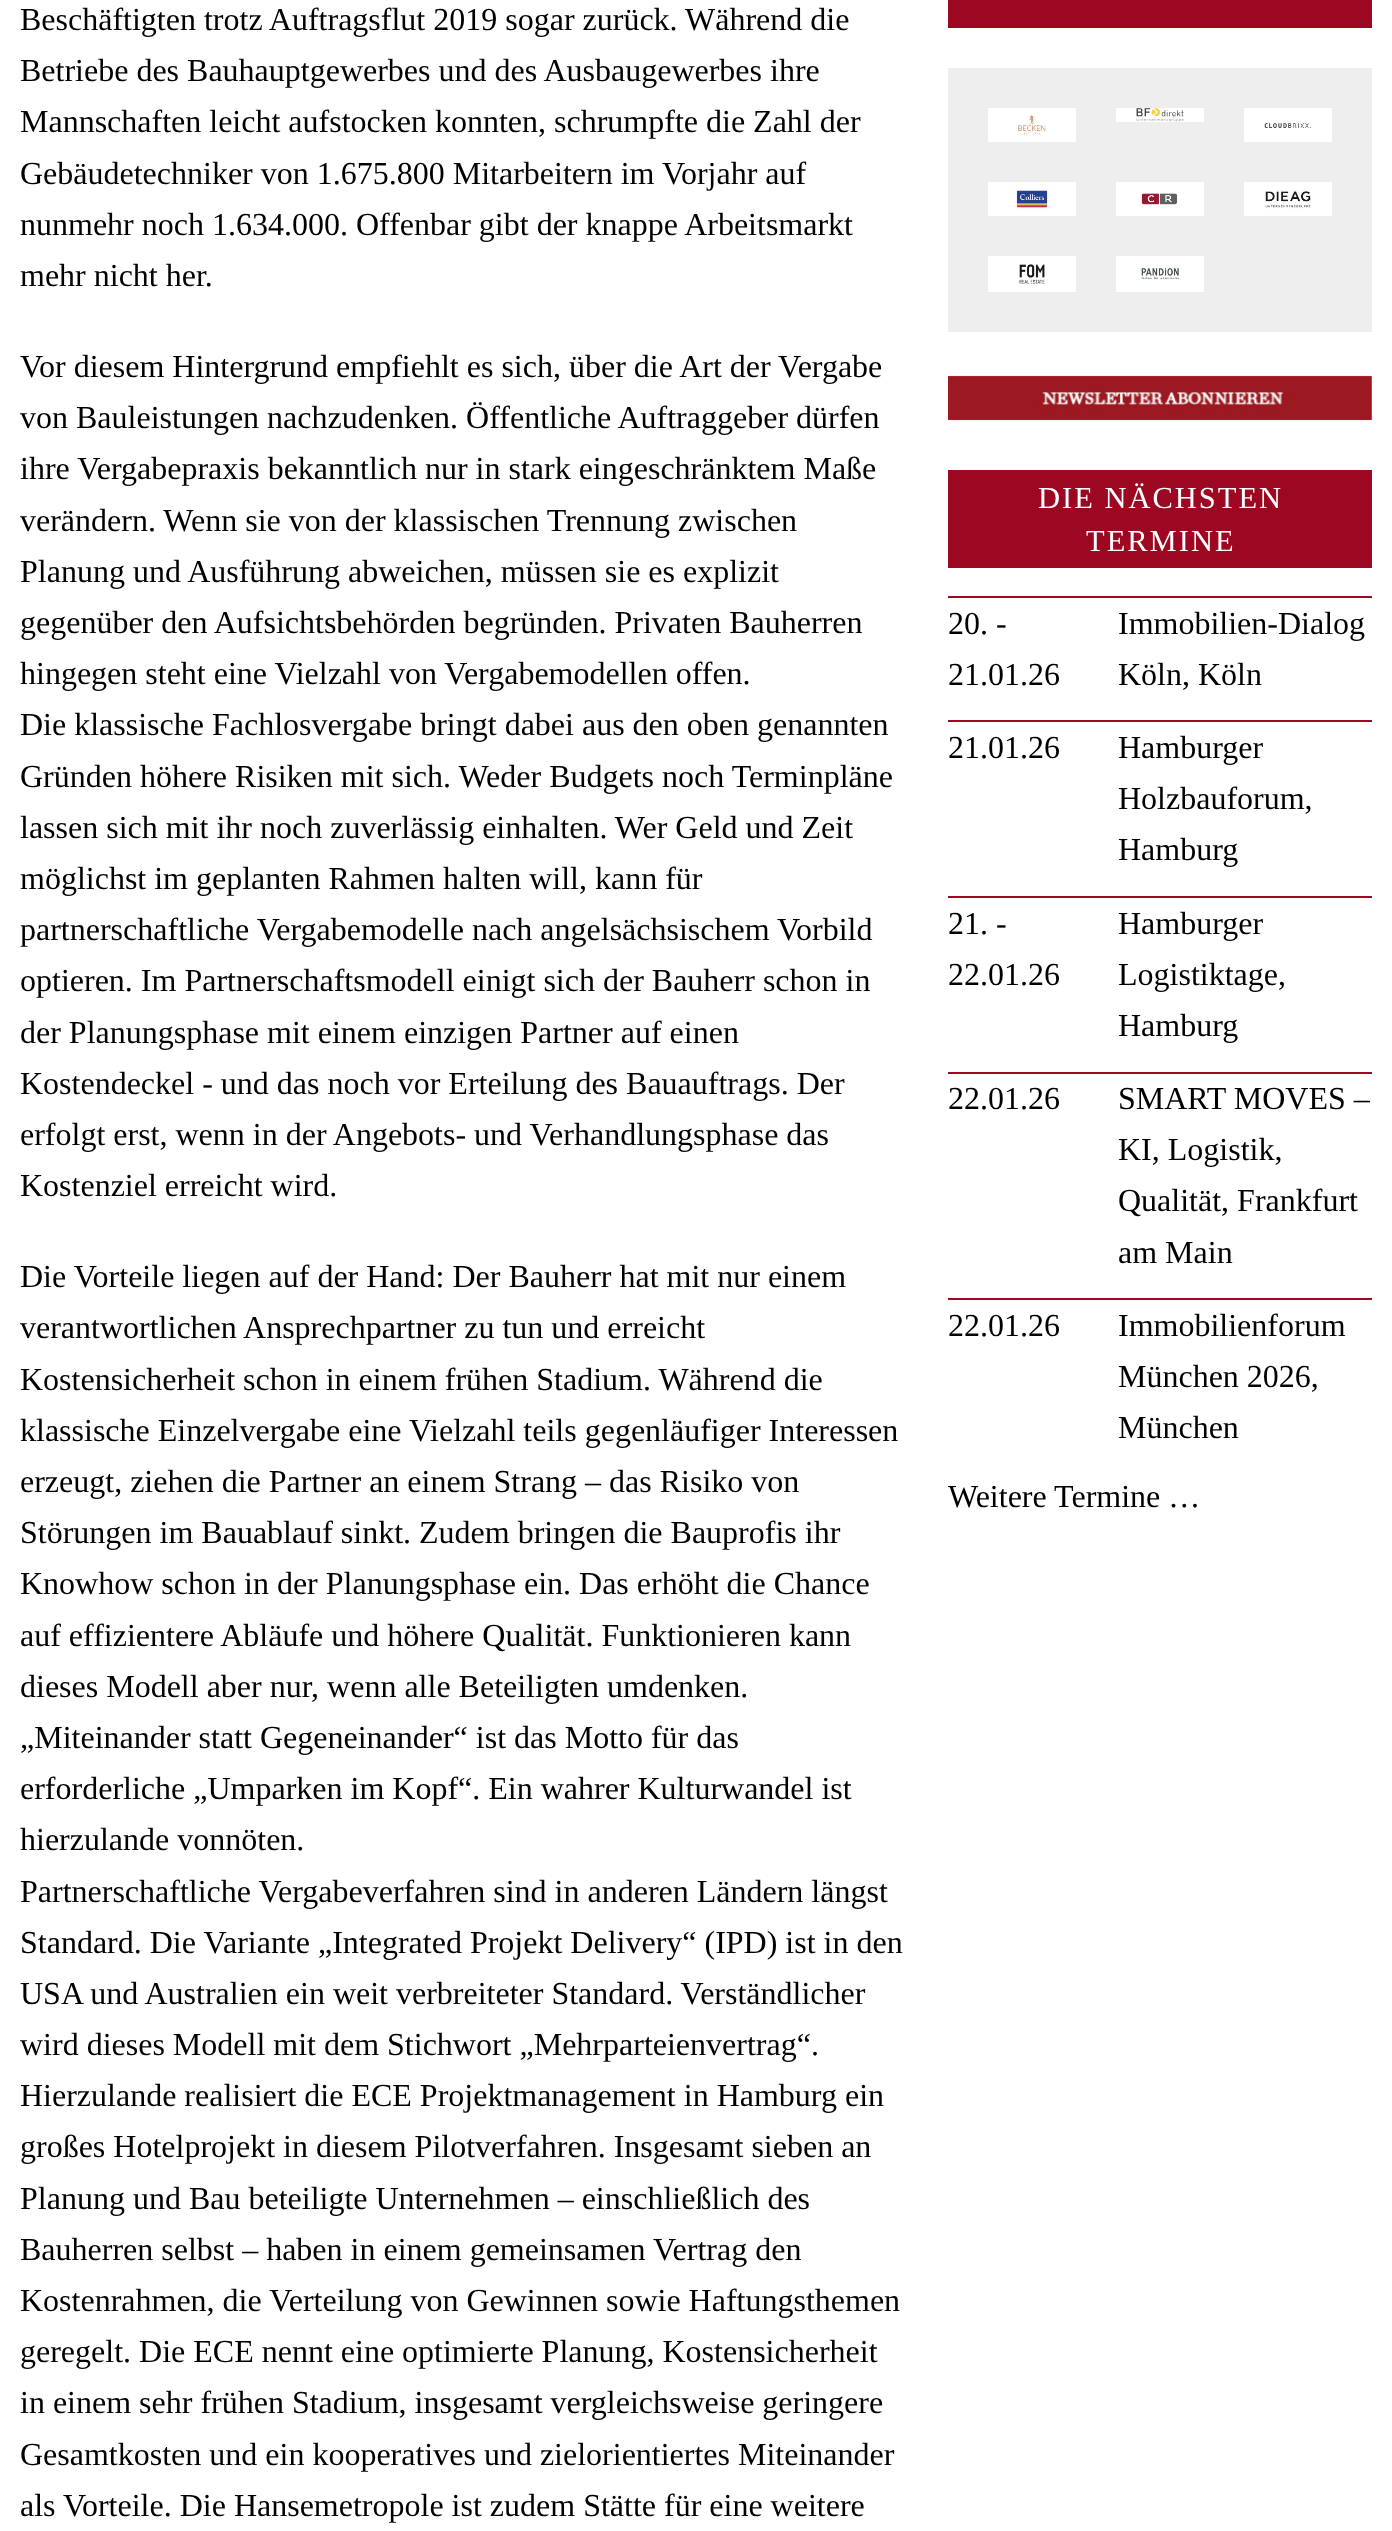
(async () => {
    const canvas = document.querySelector("canvas");
    canvas.width = 1392;
    canvas.height = 2531;
    const context = canvas.getContext("2d");
    context.miterLimit = 4;
    context.fontKerning = "normal";
    function write(s, x, y, font, color) {
        context.font = font;
        context.fillStyle = color;
        context.fillText(s, x, y);
    }
    function block(x, y, w, h, color) {
        context.fillStyle = color;
        context.fillRect(x, y, w, h);
    }
    async function photo(src, x, y, w, h) {
        const img = new Image();
        img.src = src;
        await img.decode();
        context.drawImage(img, x, y, w, h);
    }

    block(0, 0, 1392, 2531, "rgb(255, 255, 255)");
    write("Beschäftigten trotz Auftragsflut 2019 sogar zurück. Während die", 20, 30, "32px Liberation Serif", "rgb(0, 0, 0)");
    write("Betriebe des Bauhauptgewerbes und des Ausbaugewerbes ihre", 20, 81, "32px Liberation Serif", "rgb(0, 0, 0)");
    write("Mannschaften leicht aufstocken konnten, schrumpfte die Zahl der", 20, 132, "32px Liberation Serif", "rgb(0, 0, 0)");
    write("Gebäudetechniker von 1.675.800 Mitarbeitern im Vorjahr auf", 20, 184, "32px Liberation Serif", "rgb(0, 0, 0)");
    write("nunmehr noch 1.634.000. Offenbar gibt der knappe Arbeitsmarkt", 20, 235, "32px Liberation Serif", "rgb(0, 0, 0)");
    write("mehr nicht her.", 20, 286, "32px Liberation Serif", "rgb(0, 0, 0)");
    write("Vor diesem Hintergrund empfiehlt es sich, über die Art der Vergabe", 20, 377, "32px Liberation Serif", "rgb(0, 0, 0)");
    write("von Bauleistungen nachzudenken. Öffentliche Auftraggeber dürfen", 20, 428, "32px Liberation Serif", "rgb(0, 0, 0)");
    write("ihre Vergabepraxis bekanntlich nur in stark eingeschränktem Maße", 20, 479, "32px Liberation Serif", "rgb(0, 0, 0)");
    write("verändern. Wenn sie von der klassischen Trennung zwischen", 20, 531, "32px Liberation Serif", "rgb(0, 0, 0)");
    write("Planung und Ausführung abweichen, müssen sie es explizit", 20, 582, "32px Liberation Serif", "rgb(0, 0, 0)");
    write("gegenüber den Aufsichtsbehörden begründen. Privaten Bauherren", 20, 633, "32px Liberation Serif", "rgb(0, 0, 0)");
    write("hingegen steht eine Vielzahl von Vergabemodellen offen.", 20, 684, "32px Liberation Serif", "rgb(0, 0, 0)");
    write("Die klassische Fachlosvergabe bringt dabei aus den oben genannten", 20, 735, "32px Liberation Serif", "rgb(0, 0, 0)");
    write("Gründen höhere Risiken mit sich. Weder Budgets noch Terminpläne", 20, 787, "32px Liberation Serif", "rgb(0, 0, 0)");
    write("lassen sich mit ihr noch zuverlässig einhalten. Wer Geld und Zeit", 20, 838, "32px Liberation Serif", "rgb(0, 0, 0)");
    write("möglichst im geplanten Rahmen halten will, kann für", 20, 889, "32px Liberation Serif", "rgb(0, 0, 0)");
    write("partnerschaftliche Vergabemodelle nach angelsächsischem Vorbild", 20, 940, "32px Liberation Serif", "rgb(0, 0, 0)");
    write("optieren. Im Partnerschaftsmodell einigt sich der Bauherr schon in", 20, 991, "32px Liberation Serif", "rgb(0, 0, 0)");
    write("der Planungsphase mit einem einzigen Partner auf einen", 20, 1043, "32px Liberation Serif", "rgb(0, 0, 0)");
    write("Kostendeckel - und das noch vor Erteilung des Bauauftrags. Der", 20, 1094, "32px Liberation Serif", "rgb(0, 0, 0)");
    write("erfolgt erst, wenn in der Angebots- und Verhandlungsphase das", 20, 1145, "32px Liberation Serif", "rgb(0, 0, 0)");
    write("Kostenziel erreicht wird.", 20, 1196, "32px Liberation Serif", "rgb(0, 0, 0)");
    write("Die Vorteile liegen auf der Hand: Der Bauherr hat mit nur einem", 20, 1287, "32px Liberation Serif", "rgb(0, 0, 0)");
    write("verantwortlichen Ansprechpartner zu tun und erreicht", 20, 1338, "32px Liberation Serif", "rgb(0, 0, 0)");
    write("Kostensicherheit schon in einem frühen Stadium. Während die", 20, 1390, "32px Liberation Serif", "rgb(0, 0, 0)");
    write("klassische Einzelvergabe eine Vielzahl teils gegenläufiger Interessen", 20, 1441, "32px Liberation Serif", "rgb(0, 0, 0)");
    write("erzeugt, ziehen die Partner an einem Strang – das Risiko von", 20, 1492, "32px Liberation Serif", "rgb(0, 0, 0)");
    write("Störungen im Bauablauf sinkt. Zudem bringen die Bauprofis ihr", 20, 1543, "32px Liberation Serif", "rgb(0, 0, 0)");
    write("Knowhow schon in der Planungsphase ein. Das erhöht die Chance", 20, 1594, "32px Liberation Serif", "rgb(0, 0, 0)");
    write("auf effizientere Abläufe und höhere Qualität. Funktionieren kann", 20, 1646, "32px Liberation Serif", "rgb(0, 0, 0)");
    write("dieses Modell aber nur, wenn alle Beteiligten umdenken.", 20, 1697, "32px Liberation Serif", "rgb(0, 0, 0)");
    write("„Miteinander statt Gegeneinander“ ist das Motto für das", 20, 1748, "32px Liberation Serif", "rgb(0, 0, 0)");
    write("erforderliche „Umparken im Kopf“. Ein wahrer Kulturwandel ist", 20, 1799, "32px Liberation Serif", "rgb(0, 0, 0)");
    write("hierzulande vonnöten.", 20, 1850, "32px Liberation Serif", "rgb(0, 0, 0)");
    write("Partnerschaftliche Vergabeverfahren sind in anderen Ländern längst", 20, 1902, "32px Liberation Serif", "rgb(0, 0, 0)");
    write("Standard. Die Variante „Integrated Projekt Delivery“ (IPD) ist in den", 20, 1953, "32px Liberation Serif", "rgb(0, 0, 0)");
    write("USA und Australien ein weit verbreiteter Standard. Verständlicher", 20, 2004, "32px Liberation Serif", "rgb(0, 0, 0)");
    write("wird dieses Modell mit dem Stichwort „Mehrparteienvertrag“.", 20, 2055, "32px Liberation Serif", "rgb(0, 0, 0)");
    write("Hierzulande realisiert die ECE Projektmanagement in Hamburg ein", 20, 2106, "32px Liberation Serif", "rgb(0, 0, 0)");
    write("großes Hotelprojekt in diesem Pilotverfahren. Insgesamt sieben an", 20, 2157, "32px Liberation Serif", "rgb(0, 0, 0)");
    write("Planung und Bau beteiligte Unternehmen – einschließlich des", 20, 2209, "32px Liberation Serif", "rgb(0, 0, 0)");
    write("Bauherren selbst – haben in einem gemeinsamen Vertrag den", 20, 2260, "32px Liberation Serif", "rgb(0, 0, 0)");
    write("Kostenrahmen, die Verteilung von Gewinnen sowie Haftungsthemen", 20, 2311, "32px Liberation Serif", "rgb(0, 0, 0)");
    write("geregelt. Die ECE nennt eine optimierte Planung, Kostensicherheit", 20, 2362, "32px Liberation Serif", "rgb(0, 0, 0)");
    write("in einem sehr frühen Stadium, insgesamt vergleichsweise geringere", 20, 2413, "32px Liberation Serif", "rgb(0, 0, 0)");
    write("Gesamtkosten und ein kooperatives und zielorientiertes Miteinander", 20, 2465, "32px Liberation Serif", "rgb(0, 0, 0)");
    write("als Vorteile. Die Hansemetropole ist zudem Stätte für eine weitere", 20, 2516, "32px Liberation Serif", "rgb(0, 0, 0)");
    block(948, 0, 424, 28, "rgb(156, 7, 33)");
    block(948, 68, 424, 264, "rgb(238, 238, 238)");
    block(988, 108, 88, 34, "rgb(255, 255, 255)");
    await photo("media/1.png", 1018, 115, 28, 20);
    block(1116, 108, 88, 14, "rgb(255, 255, 255)");
    await photo("media/2.png", 1136, 108, 48, 14);
    block(1244, 108, 88, 34, "rgb(255, 255, 255)");
    await photo("media/3.png", 1264, 122, 48, 6);
    block(988, 182, 88, 34, "rgb(255, 255, 255)");
    await photo("media/4.png", 1016, 190, 34, 20);
    block(1116, 182, 88, 34, "rgb(255, 255, 255)");
    await photo("media/5.png", 1140, 193, 38, 12);
    block(1244, 182, 88, 34, "rgb(255, 255, 255)");
    await photo("media/6.png", 1264, 190, 47, 19);
    block(988, 256, 88, 36, "rgb(255, 255, 255)");
    await photo("media/7.png", 1019, 264, 26, 20);
    block(1116, 256, 88, 36, "rgb(255, 255, 255)");
    await photo("media/8.png", 1141, 267, 38, 13);
    await photo("media/9.png", 948, 375, 424, 46);
    block(948, 470, 424, 98, "rgb(156, 7, 33)");
    context.letterSpacing = "2px";
    write("DIE NÄCHSTEN", 1038, 508, "30.5px Liberation Serif", "rgb(255, 255, 255)");
    write("TERMINE", 1086, 551, "30.5px Liberation Serif", "rgb(255, 255, 255)");
    block(948, 596, 424, 2, "rgb(156, 7, 33)");
    context.letterSpacing = "0px";
    write("20. -", 948, 634, "32px Liberation Serif", "rgb(0, 0, 0)");
    write("21.01.26", 948, 685, "32px Liberation Serif", "rgb(0, 0, 0)");
    write("Immobilien-Dialog", 1118, 634, "32px Liberation Serif", "rgb(0, 0, 0)");
    write("Köln, Köln", 1118, 685, "32px Liberation Serif", "rgb(0, 0, 0)");
    block(948, 720, 424, 2, "rgb(156, 7, 33)");
    write("21.01.26", 948, 758, "32px Liberation Serif", "rgb(0, 0, 0)");
    write("Hamburger", 1118, 758, "32px Liberation Serif", "rgb(0, 0, 0)");
    write("Holzbauforum,", 1118, 809, "32px Liberation Serif", "rgb(0, 0, 0)");
    write("Hamburg", 1118, 860, "32px Liberation Serif", "rgb(0, 0, 0)");
    block(948, 896, 424, 2, "rgb(156, 7, 33)");
    write("21. -", 948, 934, "32px Liberation Serif", "rgb(0, 0, 0)");
    write("22.01.26", 948, 985, "32px Liberation Serif", "rgb(0, 0, 0)");
    write("Hamburger", 1118, 934, "32px Liberation Serif", "rgb(0, 0, 0)");
    write("Logistiktage,", 1118, 985, "32px Liberation Serif", "rgb(0, 0, 0)");
    write("Hamburg", 1118, 1036, "32px Liberation Serif", "rgb(0, 0, 0)");
    block(948, 1072, 424, 2, "rgb(156, 7, 33)");
    write("22.01.26", 948, 1109, "32px Liberation Serif", "rgb(0, 0, 0)");
    write("SMART MOVES –", 1118, 1109, "32px Liberation Serif", "rgb(0, 0, 0)");
    write("KI, Logistik,", 1118, 1160, "32px Liberation Serif", "rgb(0, 0, 0)");
    write("Qualität, Frankfurt", 1118, 1211, "32px Liberation Serif", "rgb(0, 0, 0)");
    write("am Main", 1118, 1263, "32px Liberation Serif", "rgb(0, 0, 0)");
    block(948, 1298, 424, 2, "rgb(156, 7, 33)");
    write("22.01.26", 948, 1336, "32px Liberation Serif", "rgb(0, 0, 0)");
    write("Immobilienforum", 1118, 1336, "32px Liberation Serif", "rgb(0, 0, 0)");
    write("München 2026,", 1118, 1387, "32px Liberation Serif", "rgb(0, 0, 0)");
    write("München", 1118, 1438, "32px Liberation Serif", "rgb(0, 0, 0)");
    write("Weitere Termine …", 948, 1507, "32px Liberation Serif", "rgb(0, 0, 0)");
})();
